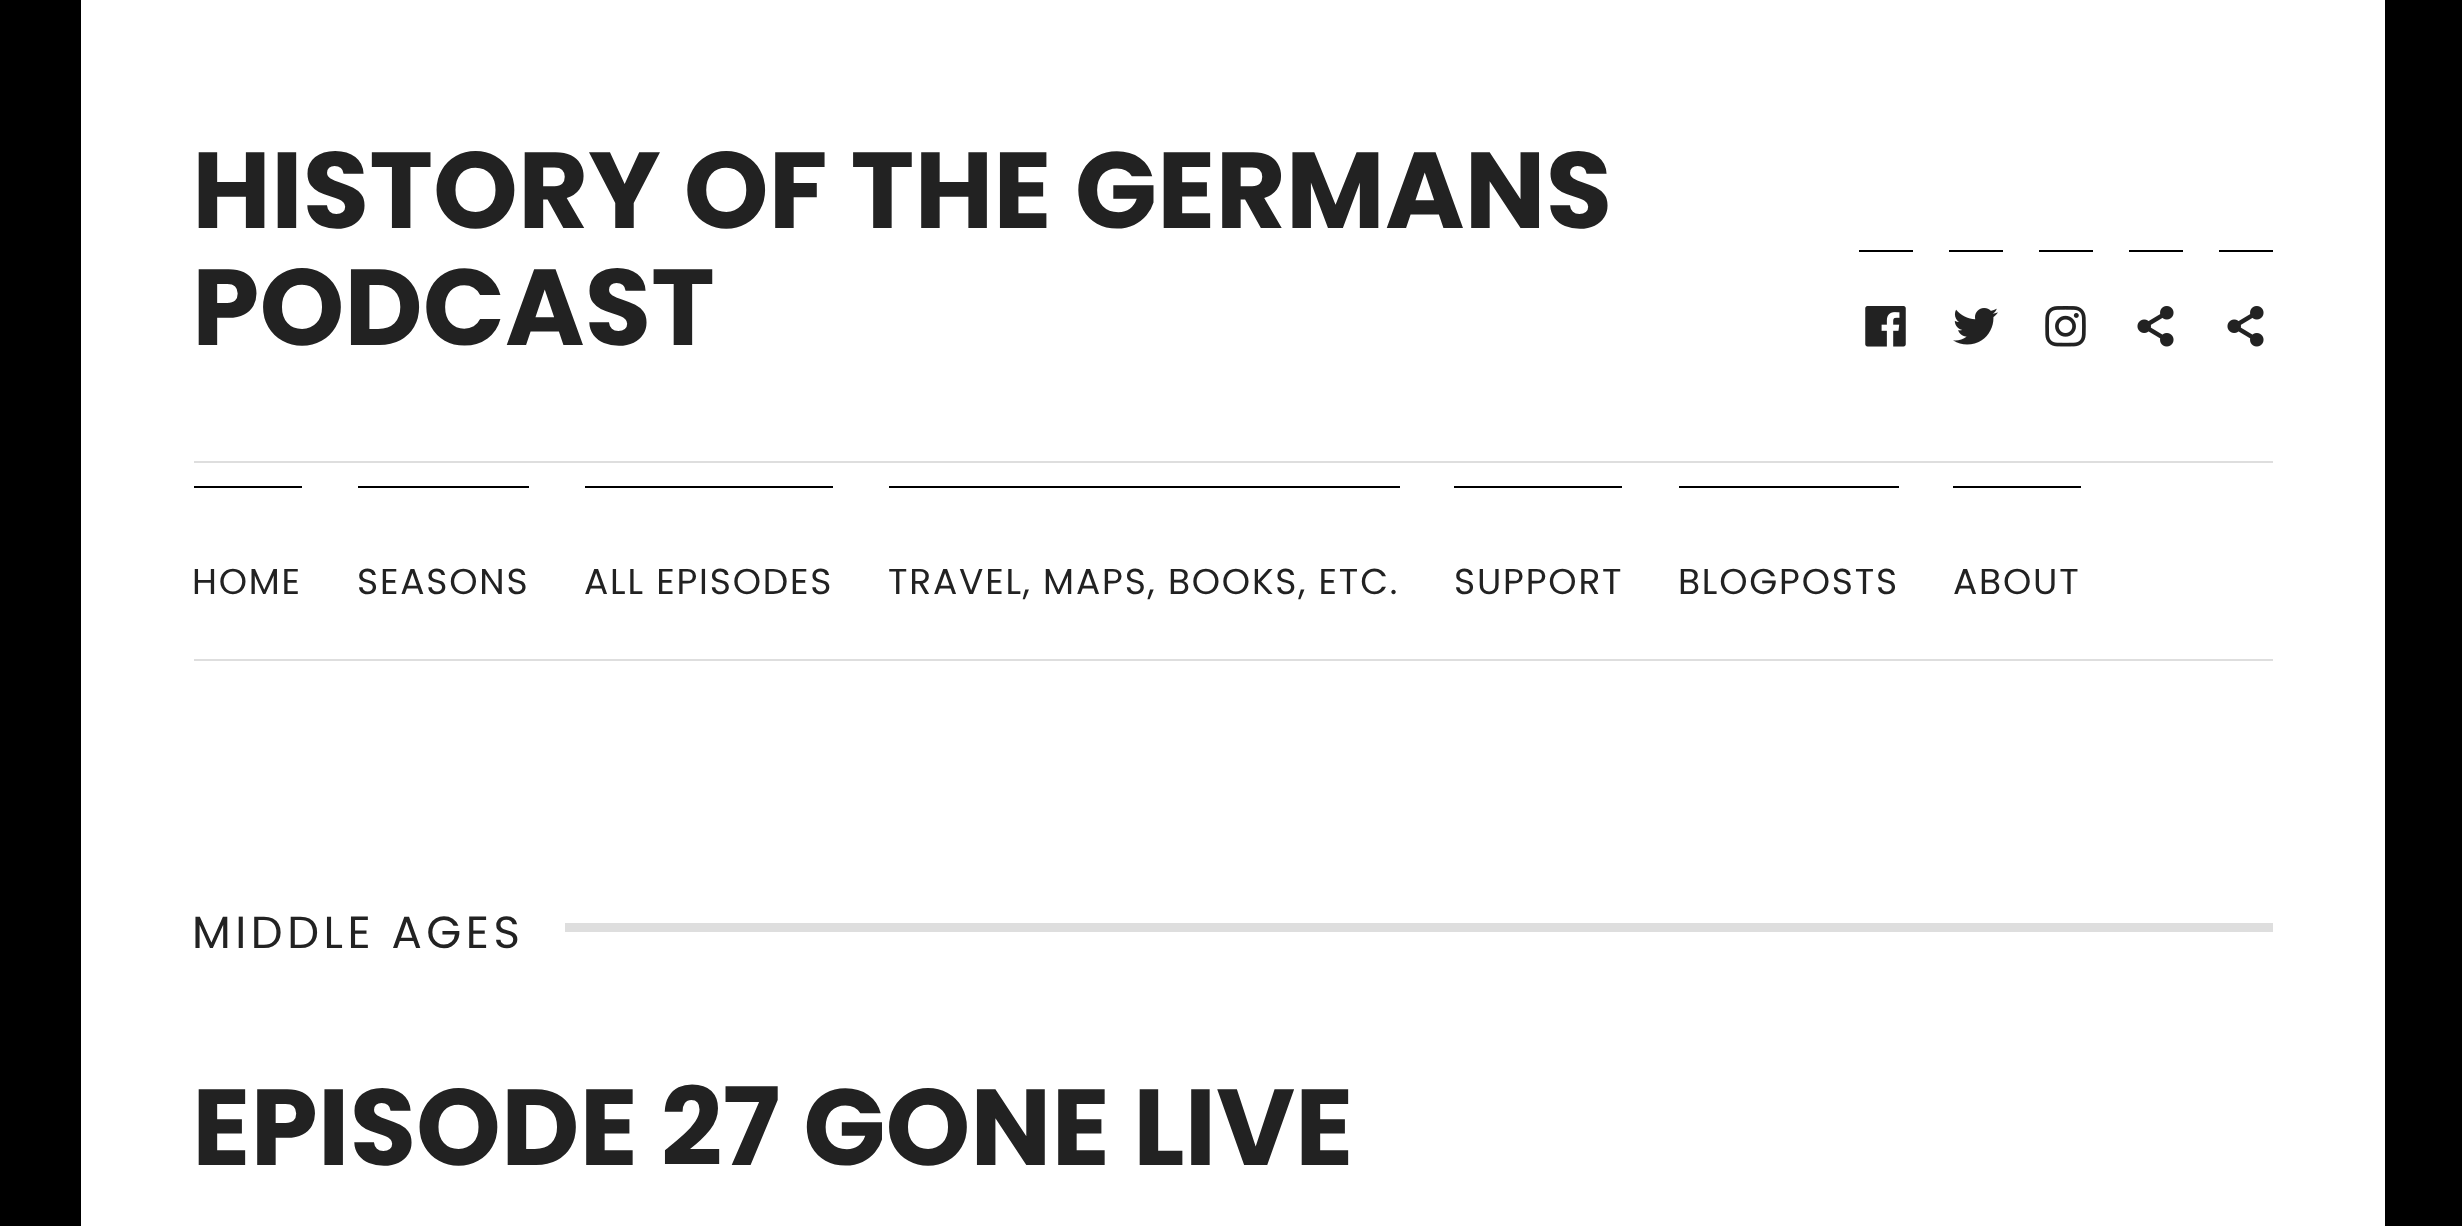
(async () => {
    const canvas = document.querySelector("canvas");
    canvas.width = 2462;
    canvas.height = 1226;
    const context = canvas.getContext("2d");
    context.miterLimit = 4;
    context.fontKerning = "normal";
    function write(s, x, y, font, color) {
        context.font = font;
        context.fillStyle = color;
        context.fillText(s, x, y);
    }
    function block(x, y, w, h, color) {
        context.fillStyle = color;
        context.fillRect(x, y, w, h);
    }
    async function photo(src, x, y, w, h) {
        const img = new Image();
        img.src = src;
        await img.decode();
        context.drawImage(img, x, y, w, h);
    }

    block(0, 0, 2462, 1226, "rgb(0, 0, 0)");
    block(81, 0, 2304, 1226, "rgb(255, 255, 255)");
    block(194, 659, 2079, 2, "rgb(222, 222, 222)");
    write("HISTORY OF THE GERMANS", 192, 228, "bold 108px Poppins", "rgb(34, 34, 34)");
    write("PODCAST", 192, 345, "bold 108px Poppins", "rgb(34, 34, 34)");
    block(1859, 250, 54, 2, "rgb(0, 0, 0)");
    await photo("media/1.png", 1865, 306, 41, 41);
    block(1949, 250, 54, 2, "rgb(0, 0, 0)");
    await photo("media/2.png", 1953, 308, 45, 37);
    block(2039, 250, 54, 2, "rgb(0, 0, 0)");
    await photo("media/3.png", 2045, 306, 41, 41);
    block(2129, 250, 54, 2, "rgb(0, 0, 0)");
    await photo("media/4.png", 2137, 306, 37, 41);
    block(2219, 250, 54, 2, "rgb(0, 0, 0)");
    await photo("media/4.png", 2227, 306, 37, 41);
    block(194, 461, 2079, 2, "rgb(222, 222, 222)");
    block(194, 486, 108, 2, "rgb(0, 0, 0)");
    context.letterSpacing = "1.8px";
    write("HOME", 192, 594, "36px Poppins", "rgb(34, 34, 34)");
    block(358, 486, 171, 2, "rgb(0, 0, 0)");
    write("SEASONS", 357, 594, "36px Poppins", "rgb(34, 34, 34)");
    block(585, 486, 248, 2, "rgb(0, 0, 0)");
    write("ALL EPISODES", 584, 594, "36px Poppins", "rgb(34, 34, 34)");
    block(889, 486, 511, 2, "rgb(0, 0, 0)");
    write("TRAVEL, MAPS, BOOKS, ETC.", 888, 594, "36px Poppins", "rgb(34, 34, 34)");
    block(1454, 486, 168, 2, "rgb(0, 0, 0)");
    write("SUPPORT", 1454, 594, "36px Poppins", "rgb(34, 34, 34)");
    block(1679, 486, 220, 2, "rgb(0, 0, 0)");
    write("BLOGPOSTS", 1678, 594, "36px Poppins", "rgb(34, 34, 34)");
    block(1953, 486, 128, 2, "rgb(0, 0, 0)");
    write("ABOUT", 1953, 594, "36px Poppins", "rgb(34, 34, 34)");
    context.letterSpacing = "4.5px";
    write("MIDDLE AGES", 192, 948, "45px Poppins", "rgb(34, 34, 34)");
    block(565, 923, 1708, 9, "rgb(222, 222, 222)");
    context.letterSpacing = "0px";
    write("EPISODE 27 GONE LIVE", 192, 1165, "bold 108px Poppins", "rgb(34, 34, 34)");
})();
